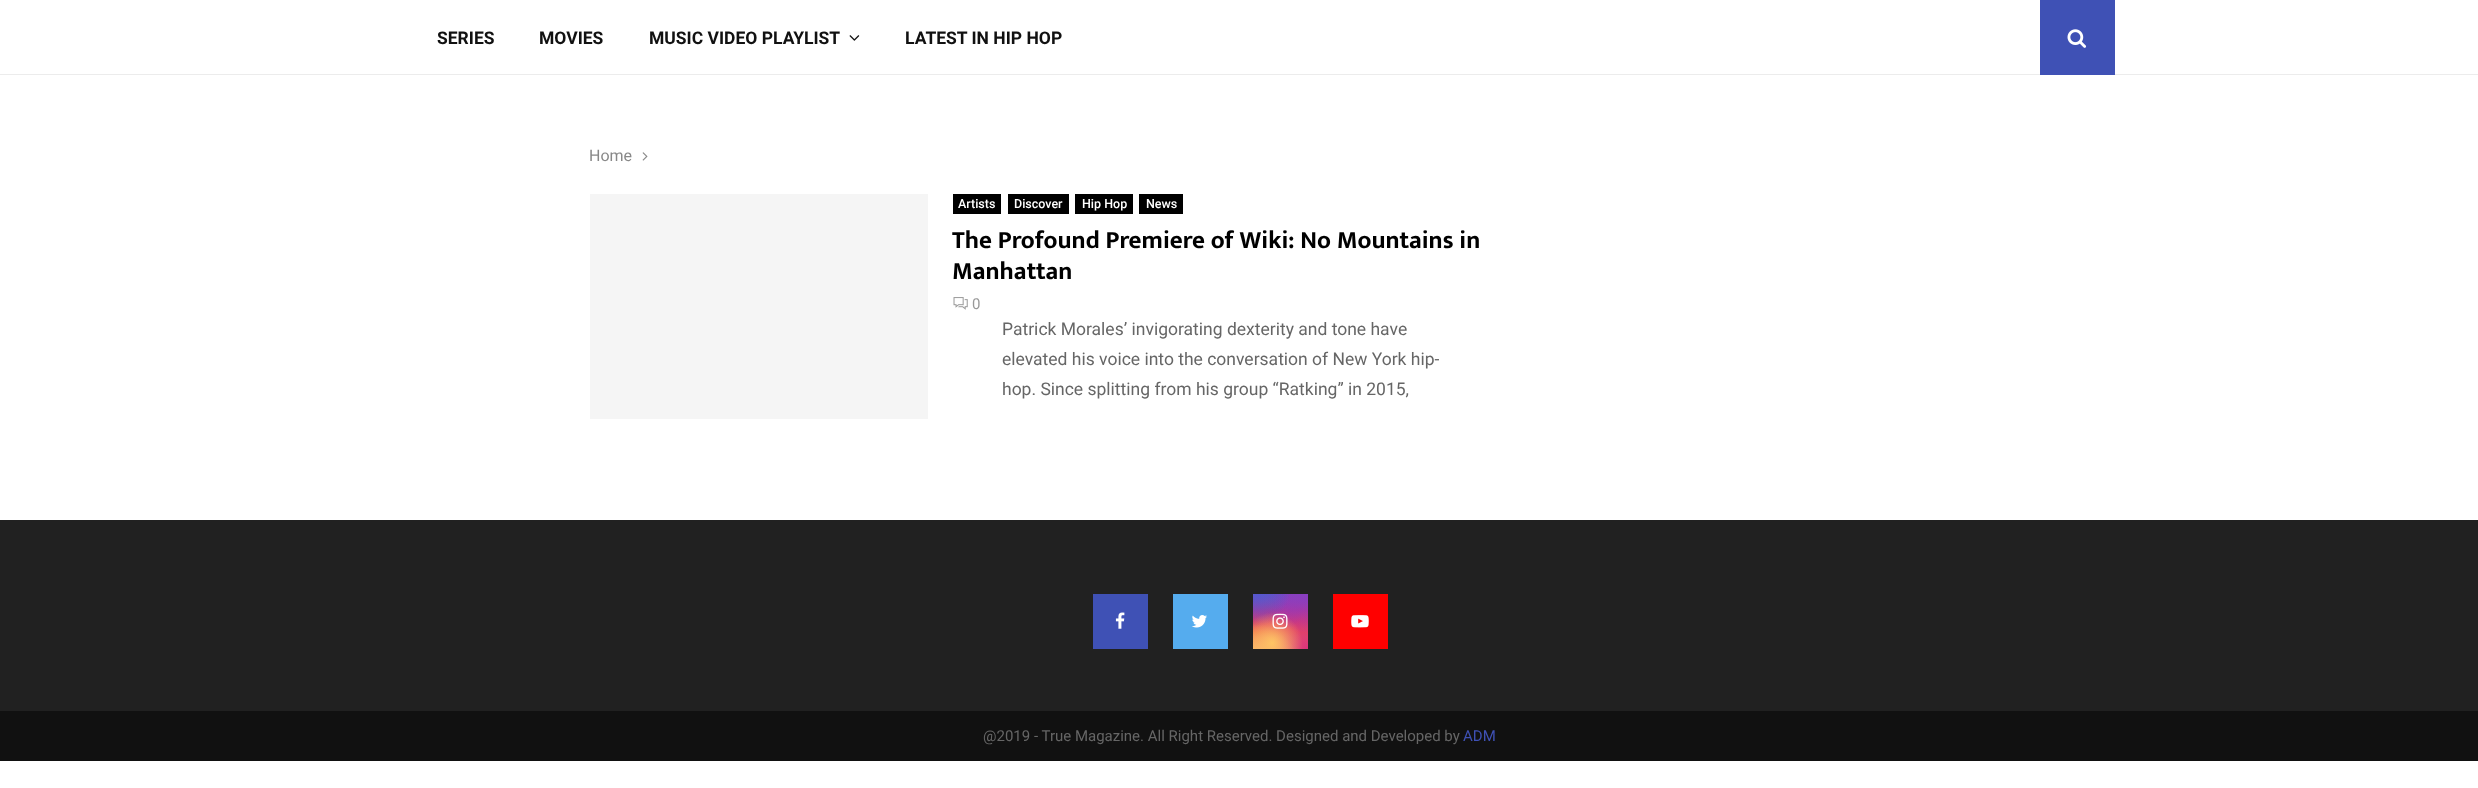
(async () => {
    const canvas = document.querySelector("canvas");
    canvas.width = 2478;
    canvas.height = 788;
    const context = canvas.getContext("2d");
    context.miterLimit = 4;
    context.fontKerning = "normal";
    function write(s, x, y, font, color) {
        context.font = font;
        context.fillStyle = color;
        context.fillText(s, x, y);
    }
    function block(x, y, w, h, color) {
        context.fillStyle = color;
        context.fillRect(x, y, w, h);
    }
    async function photo(src, x, y, w, h) {
        const img = new Image();
        img.src = src;
        await img.decode();
        context.drawImage(img, x, y, w, h);
    }
    let gradient;

    block(0, 0, 2478, 788, "rgb(255, 255, 255)");
    block(0, 74, 2478, 1, "rgb(236, 236, 236)");
    write("SERIES", 437, 44, "bold 17.5px Roboto", "rgb(17, 17, 17)");
    write("MOVIES", 539, 44, "bold 17.5px Roboto", "rgb(17, 17, 17)");
    write("MUSIC VIDEO PLAYLIST", 649, 44, "bold 17.5px Roboto", "rgb(17, 17, 17)");
    await photo("media/1.png", 849, 35, 11, 6);
    write("LATEST IN HIP HOP", 905, 44, "bold 17.5px Roboto", "rgb(17, 17, 17)");
    block(2040, 0, 75, 75, "rgb(63, 81, 181)");
    await photo("media/2.png", 2067, 29, 20, 19);
    write("Home", 589, 161, "16px Roboto", "rgb(136, 136, 136)");
    await photo("media/3.png", 642, 152, 6, 9);
    block(590, 194, 338, 225, "rgb(245, 245, 245)");
    block(953, 194, 48, 20, "rgb(0, 0, 0)");
    write("Artists", 958, 208, "500 12.5px Roboto", "rgb(255, 255, 255)");
    block(1008, 194, 61, 20, "rgb(0, 0, 0)");
    write("Discover", 1014, 208, "500 12.5px Roboto", "rgb(255, 255, 255)");
    block(1075, 194, 58, 20, "rgb(0, 0, 0)");
    write("Hip Hop", 1082, 208, "500 12.5px Roboto", "rgb(255, 255, 255)");
    block(1139, 194, 44, 20, "rgb(0, 0, 0)");
    write("News", 1146, 208, "500 12.5px Roboto", "rgb(255, 255, 255)");
    write("The Profound Premiere of Wiki: No Mountains in", 952, 248, "bold 25px Mukta Vaani", "rgb(0, 0, 0)");
    write("Manhattan", 952, 279, "bold 25px Mukta Vaani", "rgb(0, 0, 0)");
    await photo("media/4.png", 953, 297, 15, 13);
    write("0", 972, 309, "15px Roboto", "rgb(153, 153, 153)");
    write("Patrick Morales’ invigorating dexterity and tone have", 1002, 335, "17.5px Roboto", "rgb(102, 102, 102)");
    write("elevated his voice into the conversation of New York hip-", 1002, 365, "17.5px Roboto", "rgb(102, 102, 102)");
    write("hop. Since splitting from his group “Ratking” in 2015,", 1002, 395, "17.5px Roboto", "rgb(102, 102, 102)");
    block(0, 520, 2478, 191, "rgb(33, 33, 33)");
    block(1093, 594, 55, 55, "rgb(63, 81, 181)");
    await photo("media/5.png", 1115, 612, 10, 17);
    block(1173, 594, 55, 55, "rgb(85, 172, 238)");
    await photo("media/6.png", 1191, 615, 16, 13);
    gradient = context.createLinearGradient(1280, 594, 1280, 649);
    gradient.addColorStop(0, "rgb(101, 89, 202)");
    gradient.addColorStop(0.3, "rgb(188, 49, 143)");
    gradient.addColorStop(0.5, "rgb(227, 63, 95)");
    gradient.addColorStop(0.7, "rgb(247, 118, 56)");
    gradient.addColorStop(1, "rgb(254, 198, 109)");
    context.fillStyle = gradient;
    context.fillRect(1253, 594, 55, 55);
    gradient = context.createRadialGradient(1308, 649, 0, 1308, 649, 78);
    gradient.addColorStop(0, "rgb(217, 49, 122)");
    gradient.addColorStop(1, "rgba(217, 49, 122, 0)");
    context.fillStyle = gradient;
    context.fillRect(1253, 594, 55, 55);
    gradient = context.createRadialGradient(1286, 294.63, 0, 1286, 294.63, 47);
    gradient.addColorStop(0, "rgb(137, 61, 194)");
    gradient.addColorStop(0.5, "rgba(137, 61, 194, 0)");
    context.fillStyle = gradient;
    context.beginPath();
    context.rect(1266, 594, 40, 34);
    context.save();
    context.clip();
    context.scale(1, 93 / 47);
    context.fillRect(0, 0, 2478, 399);
    context.restore();
    gradient = context.createRadialGradient(1308, 594, 0, 1308, 594, 78);
    gradient.addColorStop(0, "rgb(137, 61, 194)");
    gradient.addColorStop(0.5, "rgba(137, 61, 194, 0)");
    context.fillStyle = gradient;
    context.fillRect(1273, 594, 35, 38);
    gradient = context.createRadialGradient(1264, 299.93, 0, 1264, 299.93, 62);
    gradient.addColorStop(0, "rgb(82, 88, 207)");
    gradient.addColorStop(0.5, "rgba(82, 88, 207, 0)");
    context.fillStyle = gradient;
    context.beginPath();
    context.rect(1253, 594, 36, 29);
    context.save();
    context.clip();
    context.scale(1, 117 / 62);
    context.fillRect(0, 0, 2478, 418);
    context.restore();
    gradient = context.createRadialGradient(1253, 466.39, 0, 1253, 466.39, 78);
    gradient.addColorStop(0, "rgb(82, 88, 207)");
    gradient.addColorStop(0.5, "rgba(82, 88, 207, 0)");
    context.fillStyle = gradient;
    context.beginPath();
    context.rect(1253, 594, 36, 33);
    context.save();
    context.clip();
    context.scale(1, 97 / 78);
    context.fillRect(0, 0, 2478, 634);
    context.restore();
    gradient = context.createRadialGradient(1253, 671, 0, 1253, 671, 95);
    gradient.addColorStop(0, "rgb(254, 197, 100)");
    gradient.addColorStop(0.5, "rgba(254, 197, 100, 0)");
    context.fillStyle = gradient;
    context.fillRect(1253, 625, 41, 24);
    gradient = context.createRadialGradient(1272, 643, 0, 1272, 643, 61);
    gradient.addColorStop(0, "rgb(254, 197, 100)");
    gradient.addColorStop(0.5, "rgba(254, 197, 100, 0)");
    context.fillStyle = gradient;
    context.fillRect(1253, 613, 49, 36);
    await photo("media/7.png", 1272, 613, 16, 16);
    block(1333, 594, 55, 55, "rgb(255, 0, 0)");
    await photo("media/8.png", 1351, 615, 18, 13);
    block(0, 711, 2478, 50, "rgb(17, 17, 17)");
    write("@2019 - True Magazine. All Right Reserved. Designed and Developed by", 983, 741, "15px Roboto", "rgb(102, 102, 102)");
    write("ADM", 1463, 741, "15px Roboto", "rgb(63, 81, 181)");
})();
